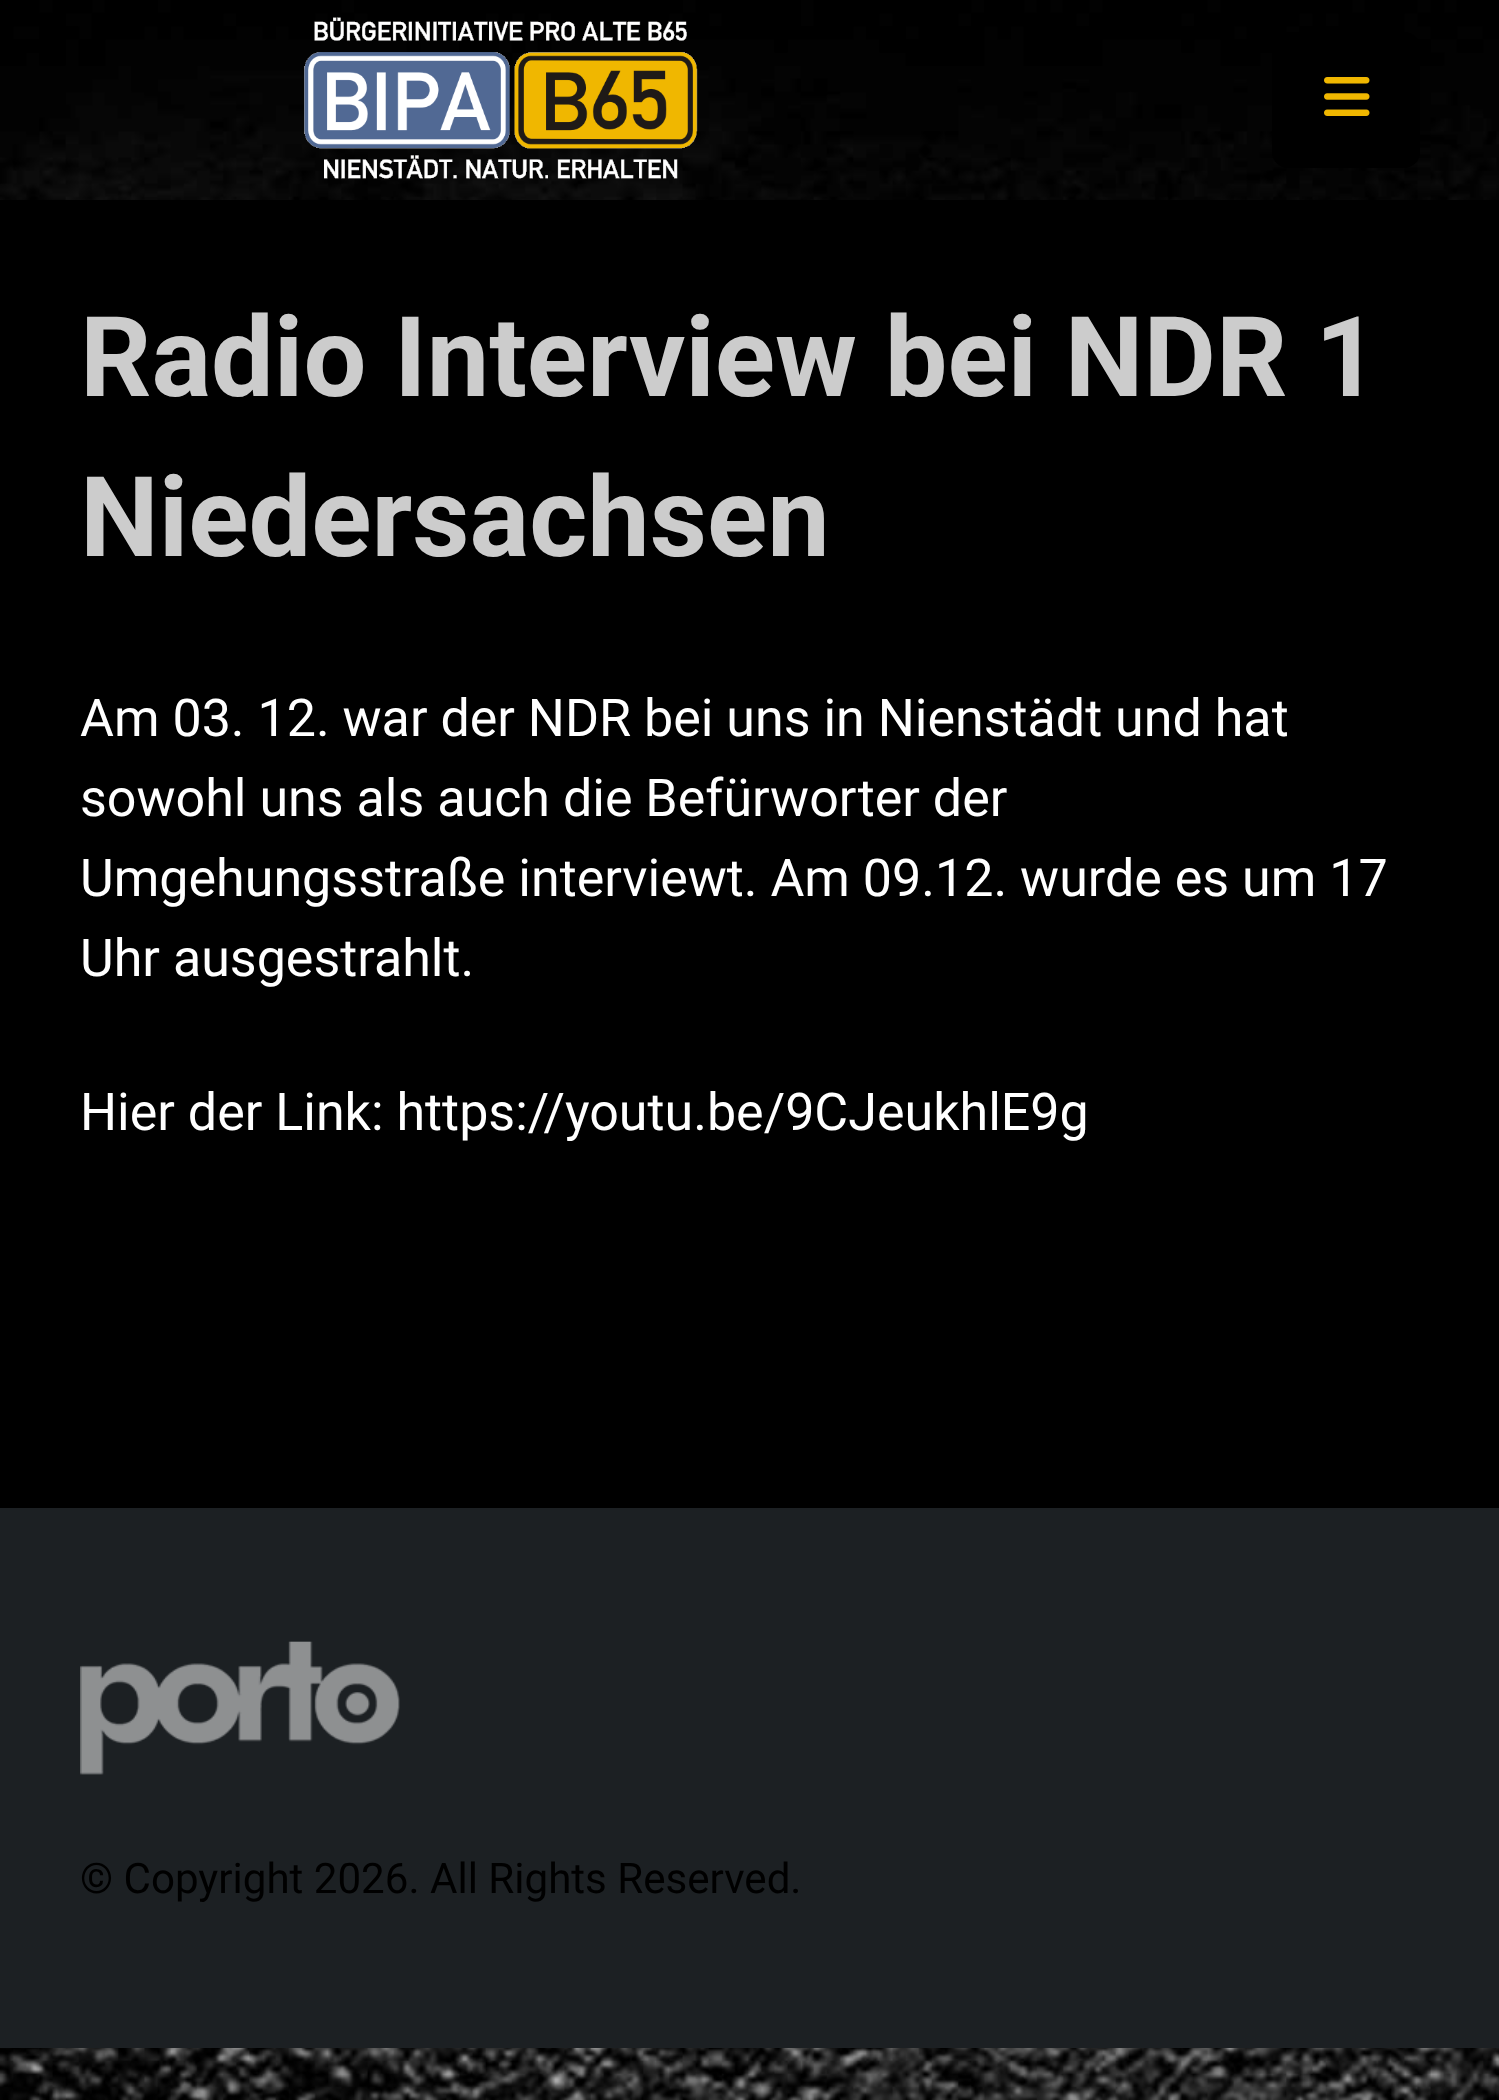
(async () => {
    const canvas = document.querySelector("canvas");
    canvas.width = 1499;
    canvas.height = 2100;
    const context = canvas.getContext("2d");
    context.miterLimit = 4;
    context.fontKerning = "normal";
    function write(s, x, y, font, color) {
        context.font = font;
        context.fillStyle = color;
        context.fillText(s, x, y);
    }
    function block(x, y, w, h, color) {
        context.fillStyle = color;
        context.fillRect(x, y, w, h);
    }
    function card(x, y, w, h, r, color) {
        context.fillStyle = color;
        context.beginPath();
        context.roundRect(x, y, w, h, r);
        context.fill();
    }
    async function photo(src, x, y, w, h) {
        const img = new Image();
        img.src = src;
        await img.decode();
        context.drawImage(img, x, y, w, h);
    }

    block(0, 0, 1499, 2100, "rgb(255, 255, 255)");
    await photo("media/1.png", 0, 0, 1499, 2100);
    await photo("media/2.png", 304, 17, 394, 162);
    card(1272, 32, 148, 136, 16, "rgb(0, 0, 0)");
    await photo("media/3.png", 1324, 77, 46, 39);
    block(0, 200, 1499, 1308, "rgb(0, 0, 0)");
    write("Radio Interview bei NDR 1", 80, 396, "bold 111.5px Roboto", "rgb(204, 204, 204)");
    write("Niedersachsen", 80, 556, "bold 111.5px Roboto", "rgb(204, 204, 204)");
    write("Am 03. 12. war der NDR bei uns in Nienstädt und hat", 80, 736, "52px Roboto", "rgb(255, 255, 255)");
    write("sowohl uns als auch die Befürworter der", 80, 816, "52px Roboto", "rgb(255, 255, 255)");
    write("Umgehungsstraße interviewt. Am 09.12. wurde es um 17", 80, 896, "52px Roboto", "rgb(255, 255, 255)");
    write("Uhr ausgestrahlt.", 80, 976, "52px Roboto", "rgb(255, 255, 255)");
    write("Hier der Link: https://youtu.be/9CJeukhlE9g", 80, 1130, "52px Roboto", "rgb(255, 255, 255)");
    block(0, 1508, 1499, 540, "rgb(28, 32, 35)");
    await photo("media/4.png", 80, 1641, 320, 134);
    write("© Copyright 2026. All Rights Reserved.", 80, 1893, "42.1px Roboto", "rgb(0, 0, 0)");
})();
